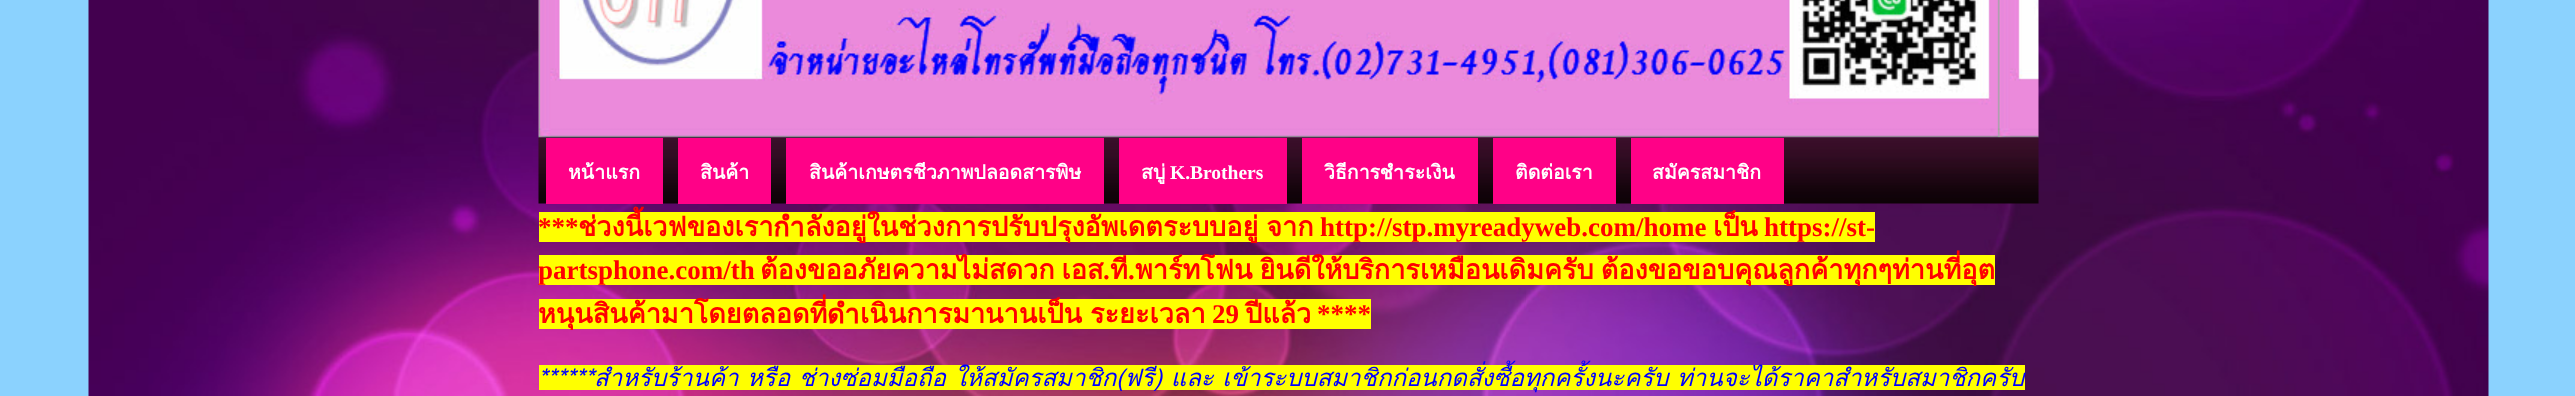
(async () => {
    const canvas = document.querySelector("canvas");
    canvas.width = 2575;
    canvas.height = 396;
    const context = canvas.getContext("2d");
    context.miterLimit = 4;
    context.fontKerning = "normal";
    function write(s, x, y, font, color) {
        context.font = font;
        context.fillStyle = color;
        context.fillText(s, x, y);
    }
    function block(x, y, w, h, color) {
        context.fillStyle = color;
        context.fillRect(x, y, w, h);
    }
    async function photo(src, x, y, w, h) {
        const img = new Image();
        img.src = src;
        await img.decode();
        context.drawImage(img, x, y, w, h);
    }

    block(0, 0, 2575, 396, "rgb(139, 210, 254)");
    await photo("media/1.png", 88, 0, 2401, 396);
    await photo("media/2.png", 538, 0, 1501, 138);
    await photo("media/3.png", 538, 137, 1501, 67);
    block(546, 138, 117, 66, "rgb(255, 1, 135)");
    write("หน้าแรก", 568, 179, "bold 19.5px Loma", "rgb(255, 255, 255)");
    block(678, 138, 93, 66, "rgb(255, 1, 135)");
    write("สินค้า", 700, 179, "bold 19.5px Loma", "rgb(255, 255, 255)");
    block(786, 138, 318, 66, "rgb(255, 1, 135)");
    write("สินค้าเกษตรชีวภาพปลอดสารพิษ", 809, 179, "bold 19.5px Loma", "rgb(255, 255, 255)");
    block(1119, 138, 168, 66, "rgb(255, 1, 135)");
    write("สบู่", 1141, 179, "bold 19.5px Loma", "rgb(255, 255, 255)");
    write("K.Brothers", 1170, 179, "bold 19.5px Liberation Serif", "rgb(255, 255, 255)");
    block(1302, 138, 176, 66, "rgb(255, 1, 135)");
    write("วิธีการชำระเงิน", 1324, 179, "bold 19.5px Loma", "rgb(255, 255, 255)");
    block(1493, 138, 123, 66, "rgb(255, 1, 135)");
    write("ติดต่อเรา", 1515, 179, "bold 19.5px Loma", "rgb(255, 255, 255)");
    block(1631, 138, 153, 66, "rgb(255, 1, 135)");
    write("สมัครสมาชิก", 1652, 179, "bold 19.5px Loma", "rgb(255, 255, 255)");
    block(539, 212, 1336, 30, "rgb(255, 255, 0)");
    write("***", 538, 236, "bold 27px Liberation Serif", "rgb(255, 0, 0)");
    context.wordSpacing = "-1px";
    write("ช่วงนี้เวฟของเรากำลังอยู่ในช่วงการปรับปรุงอัพเดตระบบอยู่ จาก", 578, 236, "bold 27px Loma", "rgb(255, 0, 0)");
    context.wordSpacing = "0px";
    write("http://stp.myreadyweb.com/home", 1320, 236, "bold 27px Liberation Serif", "rgb(255, 0, 0)");
    write("เป็น", 1713, 236, "bold 27px Loma", "rgb(255, 0, 0)");
    write("https://st-", 1764, 236, "bold 27px Liberation Serif", "rgb(255, 0, 0)");
    block(539, 255, 1456, 30, "rgb(255, 255, 0)");
    write("partsphone.com/th", 538, 279, "bold 27px Liberation Serif", "rgb(255, 0, 0)");
    context.wordSpacing = "-2px";
    write("ต้องขออภัยความไม่สดวก เอส", 760, 279, "bold 27px Loma", "rgb(255, 0, 0)");
    context.wordSpacing = "0px";
    write(".", 1103, 279, "bold 27px Liberation Serif", "rgb(255, 0, 0)");
    write("ที", 1110, 279, "bold 27px Loma", "rgb(255, 0, 0)");
    context.wordSpacing = "-2px";
    write("พาร์ทโฟน ยินดีให้บริการเหมือนเดิมครับ ต้องขอขอบคุณลูกค้าทุกๆท่านที่อุต", 1135, 279, "bold 27px Loma", "rgb(255, 0, 0)");
    context.wordSpacing = "0px";
    write(".", 1128, 279, "bold 27px Liberation Serif", "rgb(255, 0, 0)");
    block(539, 299, 832, 30, "rgb(255, 255, 0)");
    context.wordSpacing = "-1px";
    write("หนุนสินค้ามาโดยตลอดที่ดำเนินการมานานเป็น ระยะเวลา", 538, 323, "bold 27px Loma", "rgb(255, 0, 0)");
    context.wordSpacing = "0px";
    write("29", 1212, 323, "bold 27px Liberation Serif", "rgb(255, 0, 0)");
    write("ปีแล้ว", 1245, 323, "bold 27px Loma", "rgb(255, 0, 0)");
    write("****", 1317, 323, "bold 27px Liberation Serif", "rgb(255, 0, 0)");
    block(539, 365, 1486, 25, "rgb(255, 255, 0)");
    context.wordSpacing = "0.5px";
    write("******สำหรับร้านค้า หรือ ช่างซ่อมมือถือ ให้สมัครสมาชิก(ฟรี) และ เข้าระบบสมาชิกก่อนกดสั่งซื้อทุกครั้งนะครับ ท่านจะได้ราคาสำหรับสมาชิกครับ", 538, 386, "italic 24px Loma", "rgb(0, 0, 255)");
})();
